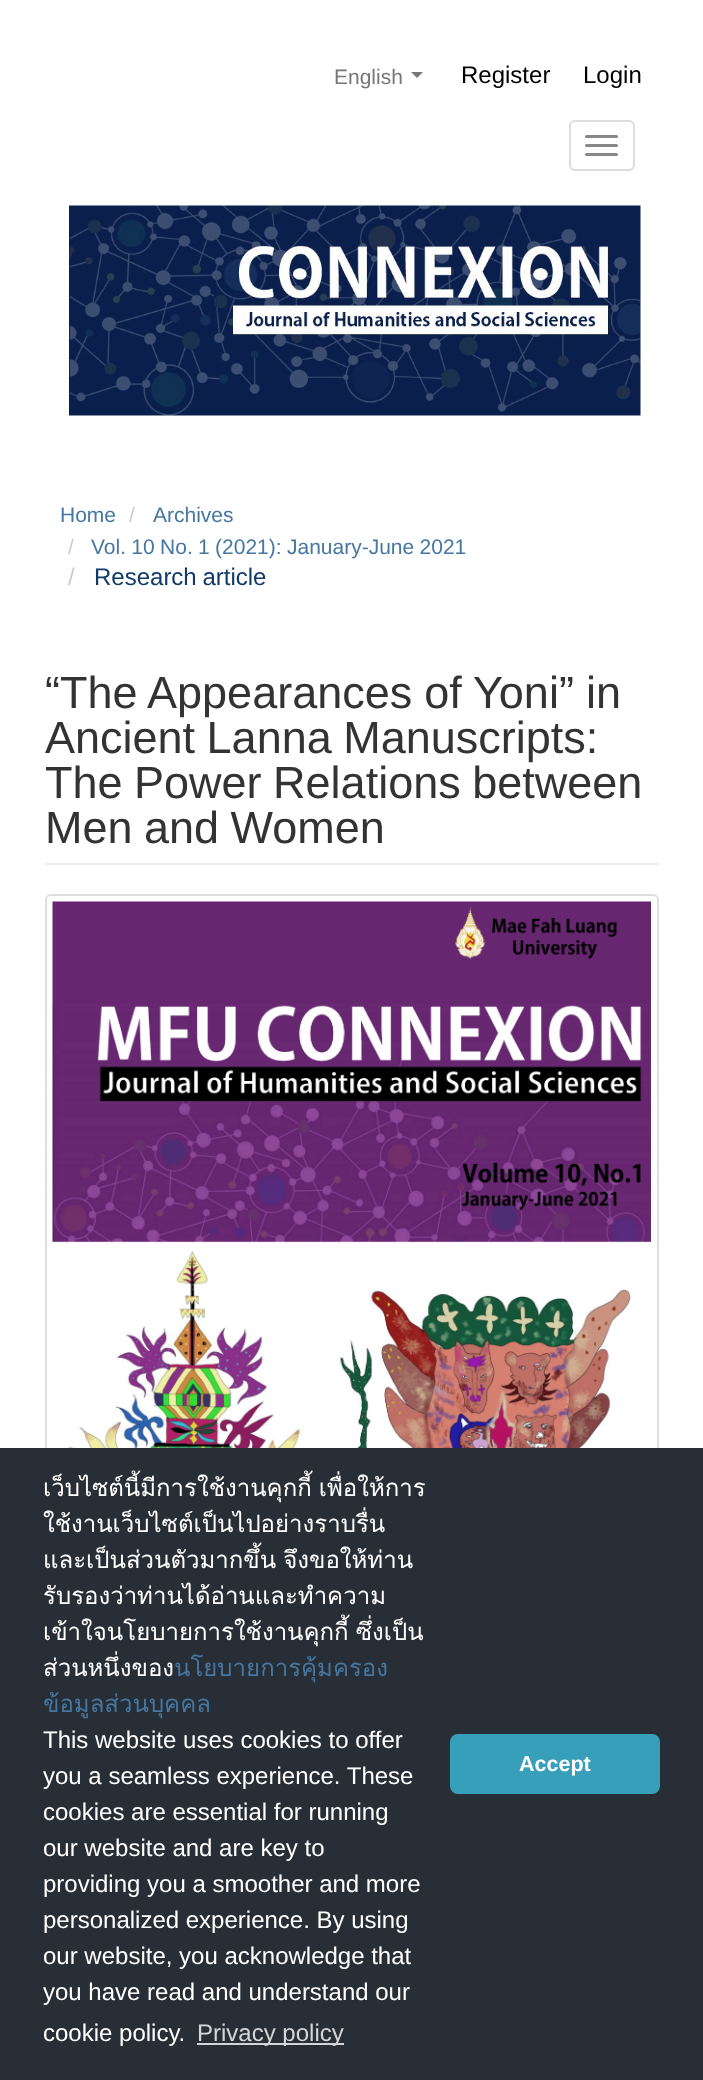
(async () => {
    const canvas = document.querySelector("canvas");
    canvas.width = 703;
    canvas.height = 2080;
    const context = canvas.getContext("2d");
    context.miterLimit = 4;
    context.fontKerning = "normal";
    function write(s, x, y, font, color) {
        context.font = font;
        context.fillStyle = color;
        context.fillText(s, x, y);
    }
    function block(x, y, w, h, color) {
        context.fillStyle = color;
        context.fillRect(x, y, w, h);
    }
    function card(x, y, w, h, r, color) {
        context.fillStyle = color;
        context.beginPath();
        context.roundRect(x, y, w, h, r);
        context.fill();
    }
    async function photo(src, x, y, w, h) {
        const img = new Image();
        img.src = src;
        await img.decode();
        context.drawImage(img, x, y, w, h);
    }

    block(0, 0, 703, 2080, "rgb(255, 255, 255)");
    write("English", 334, 84, "21px Liberation Sans", "rgb(119, 119, 119)");
    context.beginPath();
    context.moveTo(411, 72);
    context.lineTo(423, 72);
    context.lineTo(417, 78);
    context.closePath();
    context.fill();
    write("Register", 461, 83, "24px Liberation Sans", "rgb(0, 0, 0)");
    write("Login", 583, 83, "24px Liberation Sans", "rgb(0, 0, 0)");
    context.beginPath();
    context.roundRect(570, 121, 64, 49, 5);
    context.strokeStyle = "rgb(221, 221, 221)";
    context.lineWidth = 2;
    context.stroke();
    card(585, 135, 33, 3, 1.5, "rgb(136, 136, 136)");
    card(585, 144, 33, 3, 1.5, "rgb(136, 136, 136)");
    card(585, 153, 33, 3, 1.5, "rgb(136, 136, 136)");
    await photo("media/1.png", 69, 205, 572, 211);
    write("Home", 60, 522, "21px Liberation Sans", "rgb(69, 119, 161)");
    write("/", 129, 522, "21px Liberation Sans", "rgb(204, 204, 204)");
    write("Archives", 153, 522, "21px Liberation Sans", "rgb(69, 119, 161)");
    write("/", 68, 554, "21px Liberation Sans", "rgb(204, 204, 204)");
    context.wordSpacing = "-0.5px";
    write("Vol. 10 No. 1 (2021): January-June 2021", 91, 554, "21px Liberation Sans", "rgb(69, 119, 161)");
    context.wordSpacing = "0px";
    write("/", 68, 585, "24px Liberation Sans", "rgb(204, 204, 204)");
    context.wordSpacing = "-1px";
    write("Research article", 94, 585, "24px Liberation Sans", "rgb(16, 58, 103)");
    block(45, 863, 614, 2, "rgb(238, 238, 238)");
    context.wordSpacing = "-0.5px";
    write("“The Appearances of Yoni” in", 45, 708, "45px Liberation Sans", "rgb(51, 51, 51)");
    context.wordSpacing = "-1px";
    write("Ancient Lanna Manuscripts:", 45, 753, "45px Liberation Sans", "rgb(51, 51, 51)");
    write("The Power Relations between", 45, 798, "45px Liberation Sans", "rgb(51, 51, 51)");
    write("Men and Women", 45, 843, "45px Liberation Sans", "rgb(51, 51, 51)");
    context.beginPath();
    context.roundRect(46, 895, 612, 859, 5);
    context.stroke();
    await photo("media/2.png", 52, 901, 599, 547);
    block(0, 1448, 703, 632, "rgb(39, 46, 53)");
    write("เว็บไซต์นี้มีการใช้งานคุกกี้ เพื่อให้การ", 43, 1496, "24px Loma", "rgb(255, 255, 255)");
    context.wordSpacing = "0px";
    write("ใช้งานเว็บไซต์เป็นไปอย่างราบรื่น", 43, 1532, "24px Loma", "rgb(255, 255, 255)");
    context.wordSpacing = "-1px";
    write("และเป็นส่วนตัวมากขึ้น จึงขอให้ท่าน", 43, 1568, "24px Loma", "rgb(255, 255, 255)");
    context.wordSpacing = "0px";
    write("รับรองว่าท่านได้อ่านและทำความ", 43, 1604, "24px Loma", "rgb(255, 255, 255)");
    context.wordSpacing = "-1px";
    write("เข้าใจนโยบายการใช้งานคุกกี้ ซึ่งเป็น", 43, 1640, "24px Loma", "rgb(255, 255, 255)");
    context.wordSpacing = "0px";
    write("ส่วนหนึ่งของ", 43, 1676, "24px Loma", "rgb(255, 255, 255)");
    write("นโยบายการคุ้มครอง", 174, 1676, "24px Loma", "rgb(69, 119, 161)");
    write("ข้อมูลส่วนบุคคล", 43, 1712, "24px Loma", "rgb(69, 119, 161)");
    write("This website uses cookies to offer", 43, 1748, "24px Liberation Sans", "rgb(255, 255, 255)");
    write("you a seamless experience. These", 43, 1784, "24px Liberation Sans", "rgb(255, 255, 255)");
    write("cookies are essential for running", 43, 1820, "24px Liberation Sans", "rgb(255, 255, 255)");
    write("our website and are key to", 43, 1856, "24px Liberation Sans", "rgb(255, 255, 255)");
    write("providing you a smoother and more", 43, 1892, "24px Liberation Sans", "rgb(255, 255, 255)");
    write("personalized experience. By using", 43, 1928, "24px Liberation Sans", "rgb(255, 255, 255)");
    write("our website, you acknowledge that", 43, 1964, "24px Liberation Sans", "rgb(255, 255, 255)");
    write("you have read and understand our", 43, 2000, "24px Liberation Sans", "rgb(255, 255, 255)");
    write("cookie policy.", 43, 2041, "24px Liberation Sans", "rgb(255, 255, 255)");
    block(197, 2043, 147, 2, "rgb(212, 213, 215)");
    write("Privacy policy", 197, 2041, "24px Liberation Sans", "rgb(212, 213, 215)");
    card(450, 1734, 210, 60, 8, "rgb(56, 159, 187)");
    write("Accept", 519, 1771, "bold 21.5px Liberation Sans", "rgb(255, 255, 255)");
})();
